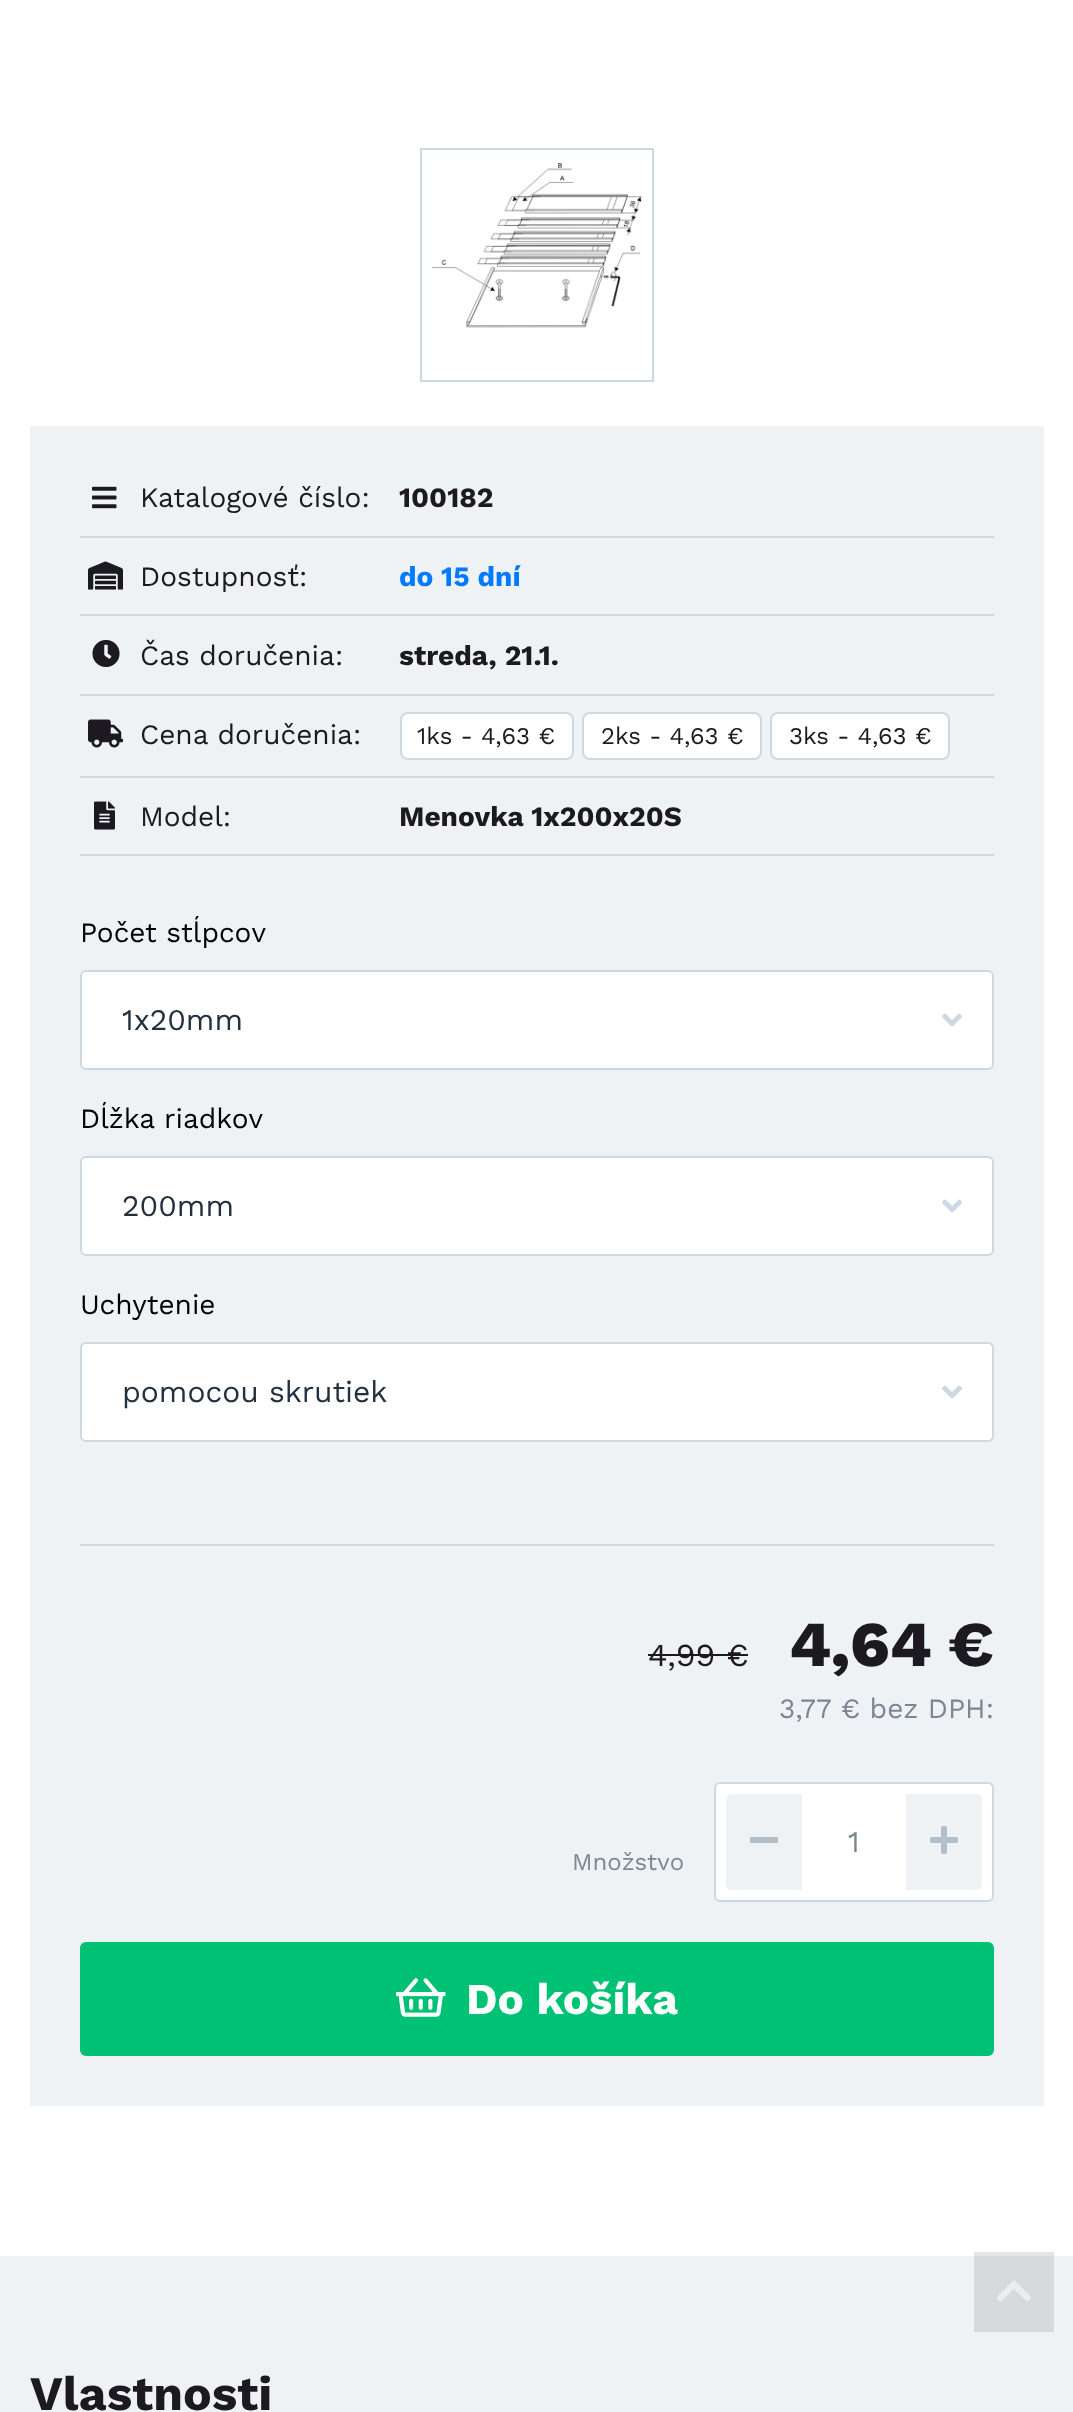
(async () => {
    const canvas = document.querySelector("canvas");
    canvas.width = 1073;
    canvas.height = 2412;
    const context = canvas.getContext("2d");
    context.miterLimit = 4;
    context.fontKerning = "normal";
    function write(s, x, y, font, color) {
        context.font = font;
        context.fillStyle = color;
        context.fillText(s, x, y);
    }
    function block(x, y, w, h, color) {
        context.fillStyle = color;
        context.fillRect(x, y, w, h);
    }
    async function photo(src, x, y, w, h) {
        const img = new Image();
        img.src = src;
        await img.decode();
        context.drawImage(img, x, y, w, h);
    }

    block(0, 0, 1073, 2412, "rgb(255, 255, 255)");
    block(974, 2252, 80, 4, "rgb(229, 229, 229)");
    context.strokeStyle = "rgb(206, 216, 226)";
    context.lineWidth = 2;
    context.strokeRect(421, 149, 232, 232);
    await photo("media/1.png", 432, 162, 210, 166);
    block(30, 426, 1014, 1680, "rgb(239, 242, 245)");
    block(80, 536, 914, 2, "rgb(206, 216, 226)");
    await photo("media/2.png", 92, 486, 25, 23);
    write("Katalogové číslo:", 140, 507, "28px Work Sans", "rgb(28, 26, 32)");
    write("100182", 399, 507, "bold 28px Work Sans", "rgb(28, 26, 32)");
    block(80, 614, 914, 2, "rgb(206, 216, 226)");
    await photo("media/3.png", 88, 561, 35, 29);
    write("Dostupnosť:", 140, 586, "28px Work Sans", "rgb(28, 26, 32)");
    write("do 15 dní", 399, 586, "bold 28px Work Sans", "rgb(0, 123, 255)");
    block(80, 694, 914, 2, "rgb(206, 216, 226)");
    await photo("media/4.png", 92, 640, 28, 27);
    write("Čas doručenia:", 140, 665, "28px Work Sans", "rgb(28, 26, 32)");
    write("streda, 21.1.", 399, 665, "bold 28px Work Sans", "rgb(28, 26, 32)");
    block(80, 776, 914, 2, "rgb(206, 216, 226)");
    await photo("media/5.png", 88, 719, 35, 29);
    write("Cena doručenia:", 140, 744, "28px Work Sans", "rgb(28, 26, 32)");
    context.fillStyle = "rgb(255, 255, 255)";
    context.beginPath();
    context.roundRect(401, 713, 172, 46, 7);
    context.fill();
    context.stroke();
    write("1ks - 4,63 €", 417, 744, "24px Work Sans", "rgb(28, 26, 32)");
    context.fillStyle = "rgb(255, 255, 255)";
    context.beginPath();
    context.roundRect(583, 713, 178, 46, 7);
    context.fill();
    context.stroke();
    write("2ks - 4,63 €", 601, 744, "24px Work Sans", "rgb(28, 26, 32)");
    context.fillStyle = "rgb(255, 255, 255)";
    context.beginPath();
    context.roundRect(771, 713, 178, 46, 7);
    context.fill();
    context.stroke();
    write("3ks - 4,63 €", 789, 744, "24px Work Sans", "rgb(28, 26, 32)");
    block(80, 854, 914, 2, "rgb(206, 216, 226)");
    await photo("media/6.png", 94, 801, 21, 29);
    write("Model:", 140, 826, "28px Work Sans", "rgb(28, 26, 32)");
    write("Menovka 1x200x20S", 399, 826, "bold 28px Work Sans", "rgb(28, 26, 32)");
    block(80, 1544, 914, 2, "rgb(206, 216, 226)");
    write("Počet stĺpcov", 80, 942, "28px Work Sans", "rgb(0, 0, 0)");
    context.fillStyle = "rgb(255, 255, 255)";
    context.beginPath();
    context.roundRect(81, 971, 912, 98, 5);
    context.fill();
    context.stroke();
    write("1x20mm", 122, 1030, "30px Work Sans", "rgb(35, 48, 61)");
    await photo("media/7.png", 942, 1013, 20, 14);
    write("Dĺžka riadkov", 80, 1128, "28px Work Sans", "rgb(0, 0, 0)");
    context.fillStyle = "rgb(255, 255, 255)";
    context.beginPath();
    context.roundRect(81, 1157, 912, 98, 5);
    context.fill();
    context.stroke();
    write("200mm", 122, 1216, "30px Work Sans", "rgb(35, 48, 61)");
    await photo("media/7.png", 942, 1199, 20, 14);
    write("Uchytenie", 80, 1314, "28px Work Sans", "rgb(0, 0, 0)");
    context.fillStyle = "rgb(255, 255, 255)";
    context.beginPath();
    context.roundRect(81, 1343, 912, 98, 5);
    context.fill();
    context.stroke();
    write("pomocou skrutiek", 122, 1402, "30px Work Sans", "rgb(35, 48, 61)");
    await photo("media/7.png", 942, 1385, 20, 14);
    write("4,99 €", 648, 1666, "32px Work Sans", "rgb(28, 26, 32)");
    block(648, 1654, 100, 2, "rgb(28, 26, 32)");
    write("4,64 €", 789, 1666, "800 64px Work Sans", "rgb(28, 26, 32)");
    write("3,77 € bez DPH:", 779, 1718, "28px Work Sans", "rgb(124, 134, 145)");
    context.fillStyle = "rgb(255, 255, 255)";
    context.beginPath();
    context.roundRect(715, 1783, 278, 118, 5);
    context.fill();
    context.stroke();
    context.fillStyle = "rgb(239, 242, 245)";
    context.beginPath();
    context.roundRect(726, 1794, 76, 96, [6, 0, 0, 6]);
    context.fill();
    block(750, 1837, 28, 6, "rgb(179, 190, 201)");
    write("1", 848, 1852, "30px Work Sans", "rgb(124, 134, 145)");
    context.fillStyle = "rgb(239, 242, 245)";
    context.beginPath();
    context.roundRect(906, 1794, 76, 96, [0, 6, 6, 0]);
    context.fill();
    await photo("media/8.png", 930, 1826, 28, 28);
    write("Množstvo", 572, 1870, "24px Work Sans", "rgb(124, 134, 145)");
    context.fillStyle = "rgb(0, 193, 116)";
    context.beginPath();
    context.roundRect(82, 1944, 910, 110, 4);
    context.fill();
    context.strokeStyle = "rgb(0, 193, 116)";
    context.lineWidth = 4;
    context.stroke();
    await photo("media/9.png", 396, 1978, 50, 39);
    write("Do košíka", 466, 2014, "bold 44px Work Sans", "rgb(255, 255, 255)");
    block(0, 2256, 1073, 156, "rgb(239, 242, 245)");
    block(974, 2256, 80, 76, "rgb(215, 218, 220)");
    await photo("media/10.png", 997, 2280, 34, 22);
    write("Vlastnosti", 30, 2410, "bold 48px Work Sans", "rgb(28, 26, 32)");
})();
